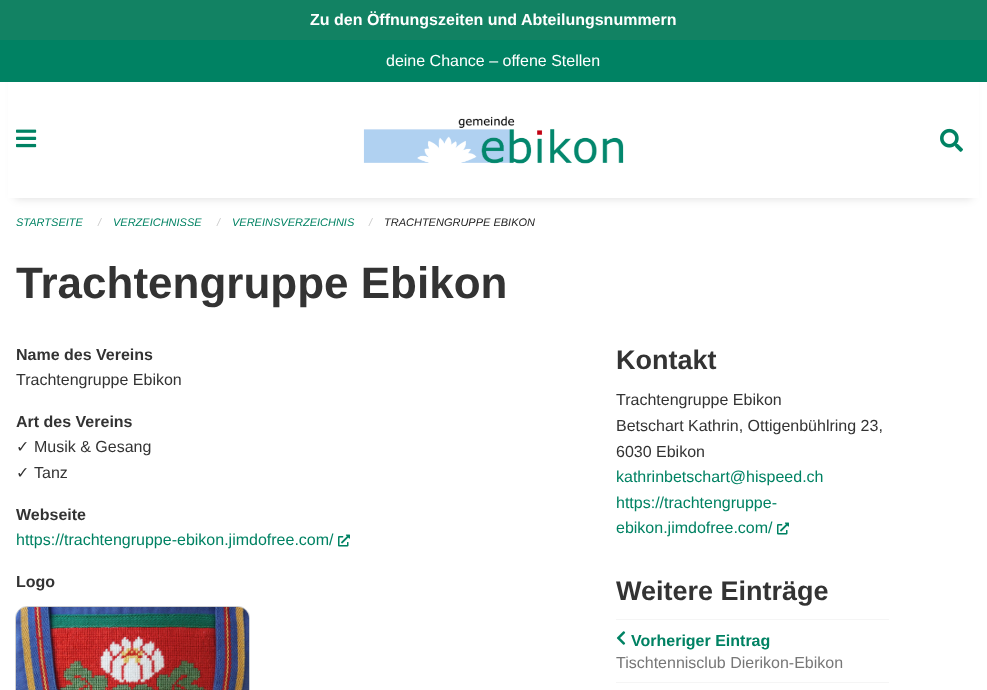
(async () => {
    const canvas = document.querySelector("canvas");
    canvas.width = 987;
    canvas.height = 690;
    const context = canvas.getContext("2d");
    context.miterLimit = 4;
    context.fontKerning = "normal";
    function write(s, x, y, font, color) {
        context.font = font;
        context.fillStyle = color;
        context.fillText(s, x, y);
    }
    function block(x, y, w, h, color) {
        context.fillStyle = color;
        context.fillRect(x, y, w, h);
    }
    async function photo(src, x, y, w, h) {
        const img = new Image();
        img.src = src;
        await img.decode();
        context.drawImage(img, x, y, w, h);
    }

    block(0, 0, 987, 690, "rgb(255, 255, 255)");
    block(0, 0, 987, 40, "rgb(18, 130, 99)");
    write("Zu den Öffnungszeiten und Abteilungsnummern", 310, 25, "bold 16px Liberation Sans", "rgb(255, 255, 255)");
    context.fillStyle = "rgba(0, 0, 0, 0.15)";
    context.filter = "blur(5px)";
    context.beginPath();
    context.rect(15, 70, 957, 128);
    context.fill();
    context.filter = "none";
    block(8, 82, 971, 116, "rgb(255, 255, 255)");
    block(0, 40, 987, 42, "rgb(0, 130, 99)");
    write("deine Chance – offene Stellen", 386, 66, "16px Liberation Sans", "rgb(255, 255, 255)");
    await photo("media/1.png", 16, 129, 21, 19);
    await photo("media/2.png", 363, 116, 261, 48);
    await photo("media/3.png", 940, 128, 23, 24);
    write("STARTSEITE", 16, 226, "italic 11px Liberation Sans", "rgb(0, 130, 99)");
    write("/", 98, 226, "italic 11px Liberation Sans", "rgb(202, 202, 202)");
    write("VERZEICHNISSE", 113, 226, "italic 11px Liberation Sans", "rgb(0, 130, 99)");
    write("/", 217, 226, "italic 11px Liberation Sans", "rgb(202, 202, 202)");
    write("VEREINSVERZEICHNIS", 232, 226, "italic 11px Liberation Sans", "rgb(0, 130, 99)");
    write("/", 369, 226, "italic 11px Liberation Sans", "rgb(202, 202, 202)");
    write("TRACHTENGRUPPE EBIKON", 384, 226, "italic 11px Liberation Sans", "rgb(34, 34, 34)");
    write("Trachtengruppe Ebikon", 16, 298, "bold 44px Liberation Sans", "rgb(51, 51, 51)");
    write("Name des Vereins", 16, 360, "bold 16px Liberation Sans", "rgb(51, 51, 51)");
    write("Trachtengruppe Ebikon", 16, 385, "16px Liberation Sans", "rgb(51, 51, 51)");
    write("Art des Vereins", 16, 427, "bold 16px Liberation Sans", "rgb(51, 51, 51)");
    write("✓", 16, 452, "16px DejaVu Sans", "rgb(51, 51, 51)");
    write("Musik & Gesang", 34, 452, "16px Liberation Sans", "rgb(51, 51, 51)");
    write("✓", 16, 478, "16px DejaVu Sans", "rgb(51, 51, 51)");
    write("Tanz", 34, 478, "16px Liberation Sans", "rgb(51, 51, 51)");
    write("Webseite", 16, 520, "bold 16px Liberation Sans", "rgb(51, 51, 51)");
    write("https://trachtengruppe-ebikon.jimdofree.com/", 16, 545, "16px Liberation Sans", "rgb(0, 130, 99)");
    await photo("media/4.png", 338, 534, 12, 13);
    write("Logo", 16, 587, "bold 16px Liberation Sans", "rgb(51, 51, 51)");
    context.beginPath();
    context.roundRect(15.5, 606.5, 234, 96, 11.5);
    context.strokeStyle = "rgb(207, 207, 207)";
    context.stroke();
    await photo("media/5.png", 16, 607, 233, 83);
    write("Kontakt", 616, 369, "bold 27px Liberation Sans", "rgb(51, 51, 51)");
    write("Trachtengruppe Ebikon", 616, 405, "16px Liberation Sans", "rgb(51, 51, 51)");
    write("Betschart Kathrin, Ottigenbühlring 23,", 616, 431, "16px Liberation Sans", "rgb(51, 51, 51)");
    write("6030 Ebikon", 616, 457, "16px Liberation Sans", "rgb(51, 51, 51)");
    write("kathrinbetschart@hispeed.ch", 616, 482, "16px Liberation Sans", "rgb(0, 130, 99)");
    write("https://trachtengruppe-", 616, 508, "16px Liberation Sans", "rgb(0, 130, 99)");
    write("ebikon.jimdofree.com/", 616, 533, "16px Liberation Sans", "rgb(0, 130, 99)");
    await photo("media/4.png", 777, 522, 12, 13);
    write("Weitere Einträge", 616, 600, "bold 27px Liberation Sans", "rgb(51, 51, 51)");
    block(616, 619, 273, 1, "rgb(245, 245, 245)");
    await photo("media/6.png", 616, 631, 10, 14);
    write("Vorheriger Eintrag", 631, 646, "bold 16px Liberation Sans", "rgb(0, 130, 99)");
    write("Tischtennisclub Dierikon-Ebikon", 616, 668, "16px Liberation Sans", "rgb(119, 119, 119)");
    block(616, 682, 273, 1, "rgb(245, 245, 245)");
})();
